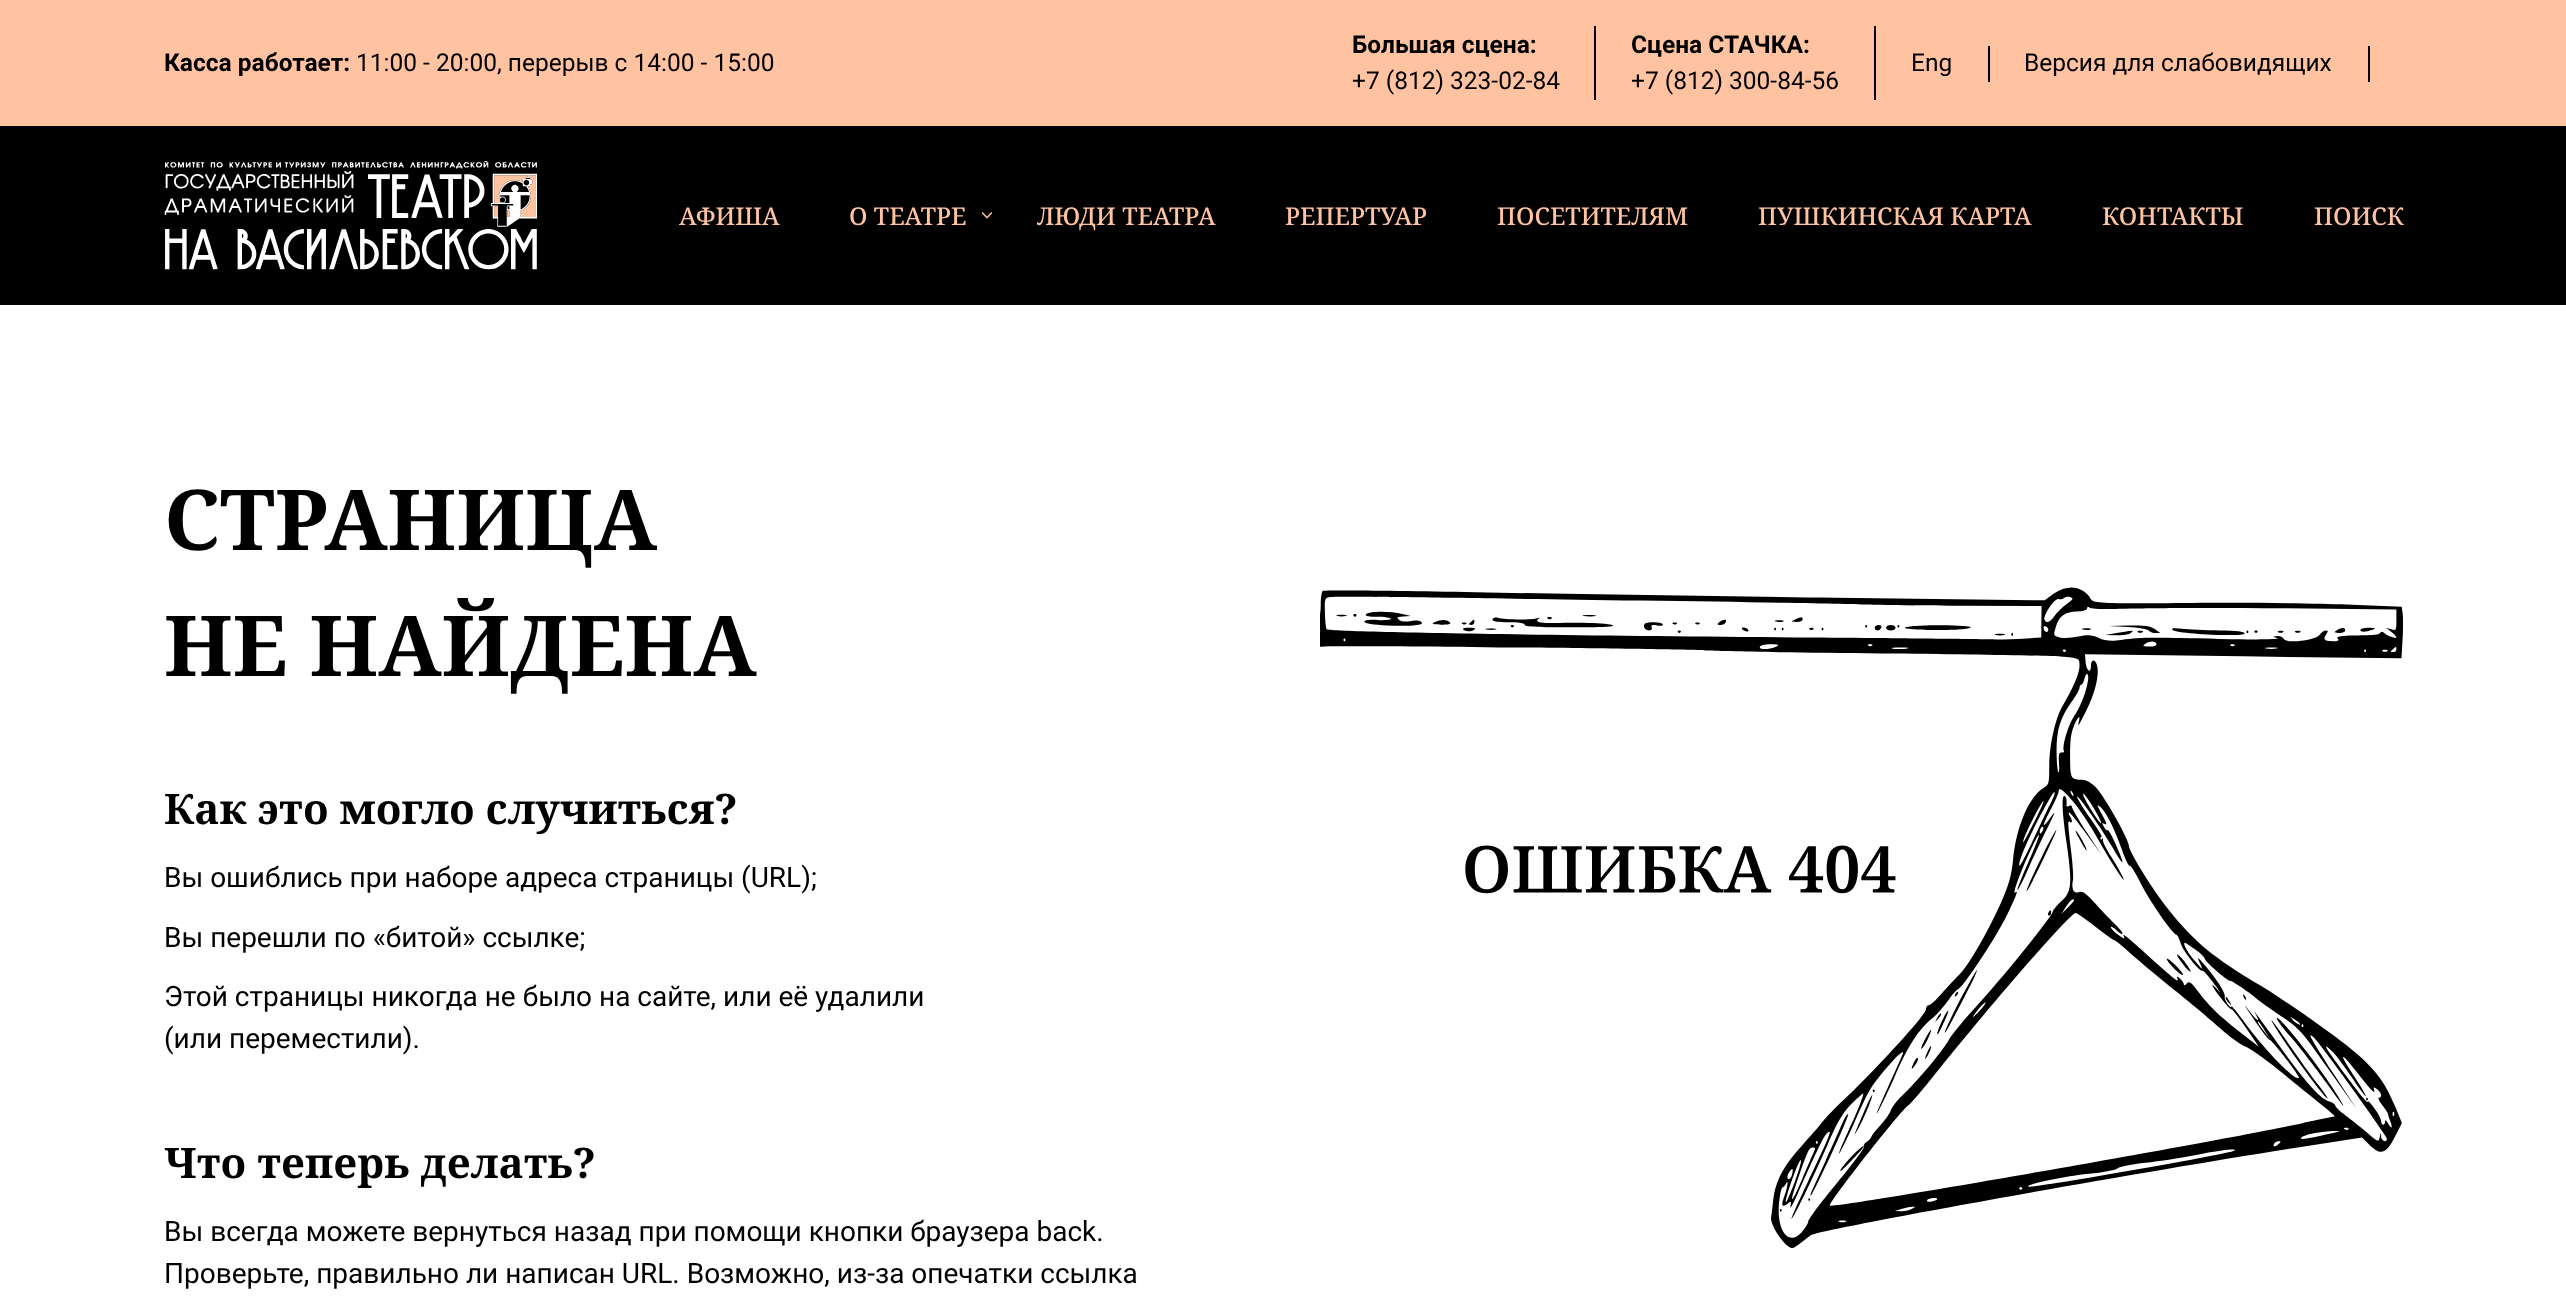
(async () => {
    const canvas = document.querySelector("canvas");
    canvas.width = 2566;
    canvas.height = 1311;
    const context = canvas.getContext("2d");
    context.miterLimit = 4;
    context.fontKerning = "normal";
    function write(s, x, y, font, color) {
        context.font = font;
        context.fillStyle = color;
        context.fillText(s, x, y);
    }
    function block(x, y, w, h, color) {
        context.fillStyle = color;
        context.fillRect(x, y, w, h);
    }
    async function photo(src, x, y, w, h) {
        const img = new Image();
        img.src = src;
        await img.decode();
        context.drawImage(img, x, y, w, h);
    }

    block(0, 0, 2566, 1311, "rgb(255, 255, 255)");
    block(0, 0, 2566, 126, "rgb(255, 195, 161)");
    write("Касса работает:", 164, 71, "bold 24.5px Roboto", "rgb(0, 0, 0)");
    write("11:00 - 20:00, перерыв с 14:00 - 15:00", 356, 71, "24.5px Roboto", "rgb(0, 0, 0)");
    block(1594, 26, 2, 74, "rgb(0, 0, 0)");
    write("Большая сцена:", 1352, 53, "bold 24.5px Roboto", "rgb(0, 0, 0)");
    write("+7 (812) 323-02-84", 1352, 89, "24.5px Roboto", "rgb(0, 0, 0)");
    block(1874, 26, 2, 74, "rgb(0, 0, 0)");
    write("Сцена СТАЧКА:", 1631, 53, "bold 24.5px Roboto", "rgb(0, 0, 0)");
    write("+7 (812) 300-84-56", 1631, 89, "24.5px Roboto", "rgb(0, 0, 0)");
    block(1988, 46, 2, 36, "rgb(0, 0, 0)");
    write("Eng", 1911, 71, "24.5px Roboto", "rgb(0, 0, 0)");
    block(2368, 46, 2, 36, "rgb(0, 0, 0)");
    write("Версия для слабовидящих", 2024, 71, "24.5px Roboto", "rgb(0, 0, 0)");
    block(0, 126, 2566, 179, "rgb(0, 0, 0)");
    await photo("media/1.png", 164, 161, 374, 109);
    write("АФИША", 679, 225, "500 24.5px Noto Serif", "rgb(255, 195, 161)");
    write("О ТЕАТРЕ", 849, 225, "500 24.5px Noto Serif", "rgb(255, 195, 161)");
    await photo("media/2.png", 982, 212, 10, 7);
    write("ЛЮДИ ТЕАТРА", 1037, 225, "500 24.5px Noto Serif", "rgb(255, 195, 161)");
    write("РЕПЕРТУАР", 1285, 225, "500 24.5px Noto Serif", "rgb(255, 195, 161)");
    write("ПОСЕТИТЕЛЯМ", 1497, 225, "500 24.5px Noto Serif", "rgb(255, 195, 161)");
    write("ПУШКИНСКАЯ КАРТА", 1758, 225, "500 24.5px Noto Serif", "rgb(255, 195, 161)");
    write("КОНТАКТЫ", 2102, 225, "500 24.5px Noto Serif", "rgb(255, 195, 161)");
    write("ПОИСК", 2314, 225, "500 24.5px Noto Serif", "rgb(255, 195, 161)");
    write("СТРАНИЦА", 164, 550, "bold 84px Noto Serif", "rgb(0, 0, 0)");
    write("НЕ НАЙДЕНА", 164, 676, "bold 84px Noto Serif", "rgb(0, 0, 0)");
    write("Как это могло случиться?", 164, 824, "bold 42px Noto Serif", "rgb(0, 0, 0)");
    write("Вы ошиблись при наборе адреса страницы (URL);", 164, 887, "28px Roboto", "rgb(0, 0, 0)");
    write("Вы перешли по «битой» ссылке;", 164, 947, "28px Roboto", "rgb(0, 0, 0)");
    write("Этой страницы никогда не было на сайте, или её удалили", 164, 1006, "28px Roboto", "rgb(0, 0, 0)");
    write("(или переместили).", 164, 1048, "28px Roboto", "rgb(0, 0, 0)");
    write("Что теперь делать?", 164, 1178, "bold 42px Noto Serif", "rgb(0, 0, 0)");
    write("Вы всегда можете вернуться назад при помощи кнопки браузера back.", 164, 1241, "28px Roboto", "rgb(0, 0, 0)");
    write("Проверьте, правильно ли написан URL. Возможно, из-за опечатки ссылка", 164, 1283, "28px Roboto", "rgb(0, 0, 0)");
    await photo("media/3.png", 1320, 587, 1084, 661);
})();
